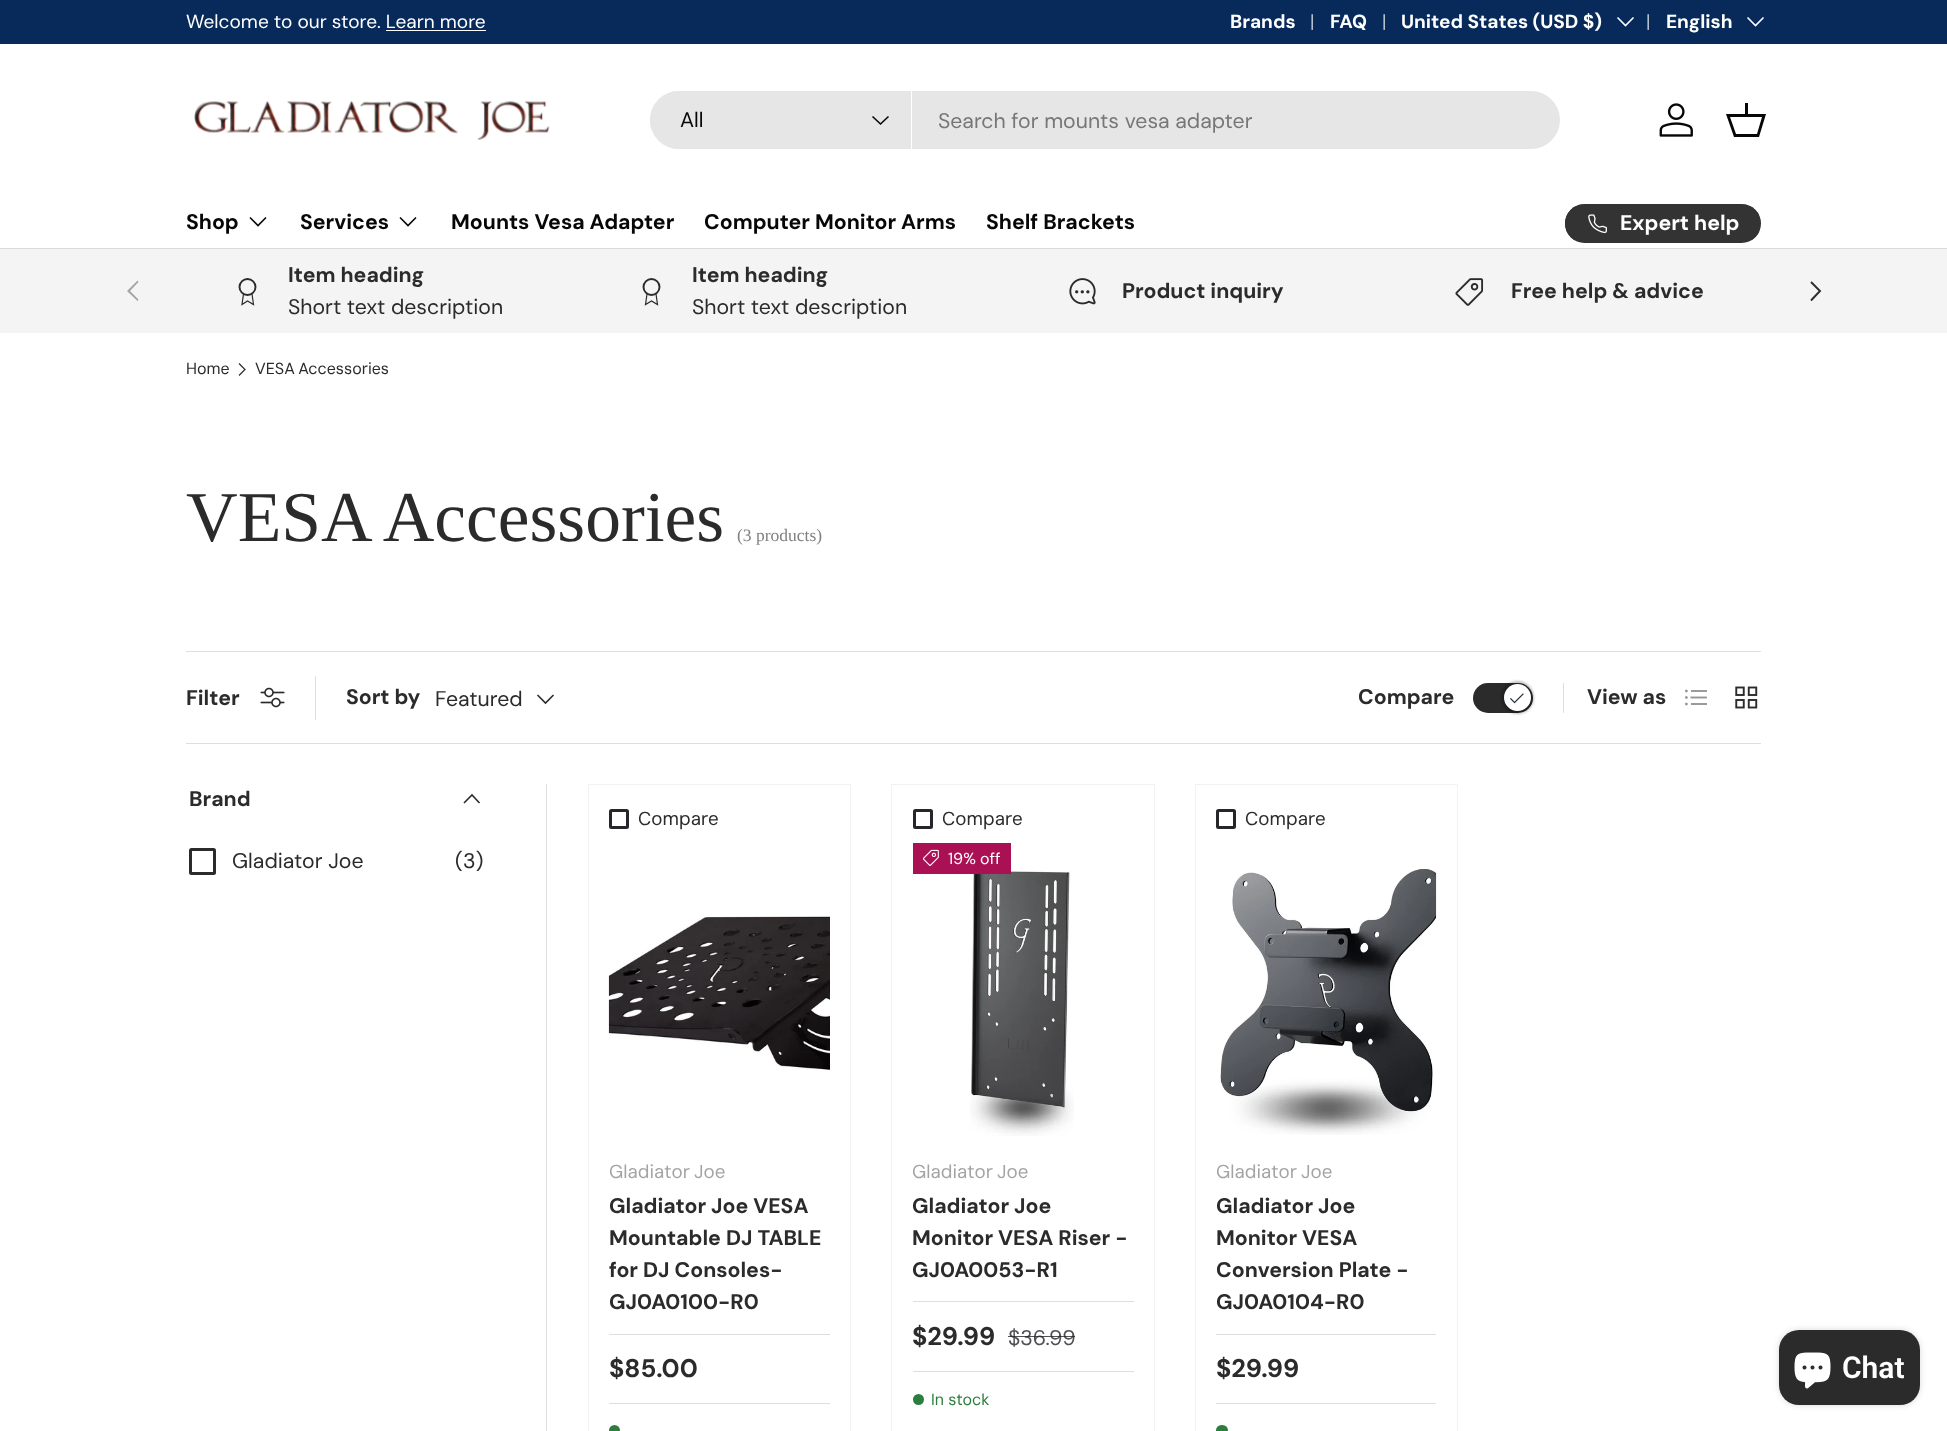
(async () => {
    const canvas = document.querySelector("canvas");
    canvas.width = 1947;
    canvas.height = 1431;
    const context = canvas.getContext("2d");
    context.miterLimit = 4;
    context.fontKerning = "normal";
    function write(s, x, y, font, color) {
        context.font = font;
        context.fillStyle = color;
        context.fillText(s, x, y);
    }
    function block(x, y, w, h, color) {
        context.fillStyle = color;
        context.fillRect(x, y, w, h);
    }
    function card(x, y, w, h, r, color) {
        context.fillStyle = color;
        context.beginPath();
        context.roundRect(x, y, w, h, r);
        context.fill();
    }
    async function photo(src, x, y, w, h) {
        const img = new Image();
        img.src = src;
        await img.decode();
        context.drawImage(img, x, y, w, h);
    }
    let gradient;

    block(0, 0, 1947, 1431, "rgb(255, 255, 255)");
    block(0, 0, 1947, 44, "rgb(7, 42, 91)");
    write("Welcome to our store. Learn more", 186, 28, "19.1px 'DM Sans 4'", "rgb(255, 255, 255)");
    block(386, 30, 100, 1, "rgb(255, 255, 255)");
    write("Brands", 1230, 28, "bold 19.1px 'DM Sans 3'", "rgb(255, 255, 255)");
    write("|", 1310, 28, "19.1px 'DM Sans 4'", "rgb(181, 191, 206)");
    write("FAQ", 1330, 28, "bold 19.1px 'DM Sans 3'", "rgb(255, 255, 255)");
    write("|", 1382, 28, "19.1px 'DM Sans 4'", "rgb(181, 191, 206)");
    write("United States (USD $)", 1401, 28, "bold 19.1px 'DM Sans 3'", "rgb(255, 255, 255)");
    context.beginPath();
    context.moveTo(1633.5, 17.5);
    context.lineTo(1625.5, 25.5);
    context.lineTo(1617.5, 17.5);
    context.strokeStyle = "rgb(255, 255, 255)";
    context.lineWidth = 1.6;
    context.stroke();
    write("|", 1646, 28, "19.1px 'DM Sans 4'", "rgb(181, 191, 206)");
    write("English", 1666, 28, "bold 19.1px 'DM Sans 3'", "rgb(255, 255, 255)");
    context.beginPath();
    context.moveTo(1763.5, 17.5);
    context.lineTo(1755.5, 25.5);
    context.lineTo(1747.5, 17.5);
    context.stroke();
    block(0, 248, 1947, 1, "rgb(218, 218, 218)");
    await photo("media/1.png", 194, 101, 356, 39);
    card(650, 91, 910, 58, 29, "rgb(230, 230, 230)");
    context.beginPath();
    context.roundRect(650, 91, 263, 58, [29, 0, 0, 29]);
    context.fill();
    block(911, 91, 1, 58, "rgb(255, 255, 255)");
    write("All", 680, 127, "21.25px 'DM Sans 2'", "rgb(7, 7, 7)");
    context.beginPath();
    context.moveTo(888.5, 116.5);
    context.lineTo(880.5, 124);
    context.lineTo(872.5, 116.5);
    context.strokeStyle = "rgb(7, 7, 7)";
    context.stroke();
    write("Search for mounts vesa adapter", 938, 128, "21.25px 'DM Sans 2'", "rgb(119, 119, 119)");
    await photo("media/2.png", 1659, 103, 34, 34);
    context.fillStyle = "rgb(7, 7, 7)";
    context.beginPath();
    context.moveTo(1745, 114);
    context.lineTo(1745, 103);
    context.lineTo(1748, 103);
    context.lineTo(1748, 114);
    context.lineTo(1766, 114);
    context.lineTo(1759, 137);
    context.lineTo(1734, 137);
    context.lineTo(1726, 114);
    context.closePath();
    context.moveTo(1730, 117);
    context.lineTo(1736, 134);
    context.lineTo(1757, 134);
    context.lineTo(1762, 117);
    context.closePath();
    context.fill();
    write("Shop", 186, 229, "bold 21.25px DM Sans", "rgb(7, 7, 7)");
    context.beginPath();
    context.moveTo(266, 217.5);
    context.lineTo(258, 225.5);
    context.lineTo(250, 217.5);
    context.stroke();
    write("Services", 300, 229, "bold 21.25px DM Sans", "rgb(7, 7, 7)");
    context.beginPath();
    context.moveTo(416, 217.5);
    context.lineTo(408, 225.5);
    context.lineTo(400, 217.5);
    context.stroke();
    write("Mounts Vesa Adapter", 451, 229, "bold 21.25px DM Sans", "rgb(7, 7, 7)");
    write("Computer Monitor Arms", 704, 229, "bold 21.25px DM Sans", "rgb(7, 7, 7)");
    write("Shelf Brackets", 986, 229, "bold 21.25px DM Sans", "rgb(7, 7, 7)");
    context.save();
    context.beginPath();
    context.roundRect(1565, 204, 196, 39, 19.5);
    context.clip();
    gradient = context.createLinearGradient(1198, 155, 1746, 291);
    gradient.addColorStop(0.6, "rgb(90, 90, 90)");
    gradient.addColorStop(0.6, "rgb(51, 51, 51)");
    gradient.addColorStop(1, "rgb(51, 51, 51)");
    context.fillStyle = gradient;
    context.fillRect(1565, 206, 194, 34);
    context.restore();
    context.beginPath();
    context.roundRect(1566.5, 205.5, 193, 36, 18);
    context.strokeStyle = "rgb(51, 51, 51)";
    context.lineWidth = 3;
    context.stroke();
    await photo("media/3.png", 1588, 214, 19, 20);
    write("Expert help", 1620, 230, "bold 21.25px DM Sans", "rgb(255, 255, 255)");
    block(0, 249, 1947, 84, "rgb(244, 244, 244)");
    context.beginPath();
    context.arc(247.5, 287, 8, 0, Math.PI * 2);
    context.strokeStyle = "rgb(42, 43, 42)";
    context.lineWidth = 1.9;
    context.stroke();
    context.beginPath();
    context.moveTo(243.5, 294);
    context.lineTo(242, 304.5);
    context.lineTo(247.5, 301);
    context.lineTo(253.5, 304.5);
    context.lineTo(252, 294);
    context.lineWidth = 1.2;
    context.stroke();
    write("Item heading", 288, 282, "bold 21.25px DM Sans", "rgb(42, 43, 42)");
    write("Short text description", 288, 314, "21.25px 'DM Sans 2'", "rgb(42, 43, 42)");
    context.beginPath();
    context.arc(651.5, 287, 8, 0, Math.PI * 2);
    context.lineWidth = 1.9;
    context.stroke();
    context.beginPath();
    context.moveTo(647, 294);
    context.lineTo(645.5, 304.5);
    context.lineTo(651.5, 301);
    context.lineTo(657.5, 304.5);
    context.lineTo(656, 294);
    context.lineWidth = 1.2;
    context.stroke();
    write("Item heading", 692, 282, "bold 21.25px DM Sans", "rgb(42, 43, 42)");
    write("Short text description", 692, 314, "21.25px 'DM Sans 2'", "rgb(42, 43, 42)");
    await photo("media/4.png", 1069, 278, 27, 27);
    write("Product inquiry", 1122, 298, "bold 21.25px DM Sans", "rgb(42, 43, 42)");
    await photo("media/5.png", 1455, 278, 29, 28);
    write("Free help & advice", 1511, 298, "bold 21.25px DM Sans", "rgb(42, 43, 42)");
    context.fillStyle = "rgb(163, 164, 163)";
    context.beginPath();
    context.moveTo(127, 291);
    context.lineTo(137.5, 280.5);
    context.lineTo(138.5, 282);
    context.lineTo(130, 291);
    context.lineTo(138.5, 299.5);
    context.lineTo(137.5, 301);
    context.closePath();
    context.fill();
    context.beginPath();
    context.moveTo(1811, 282);
    context.lineTo(1820, 291);
    context.lineTo(1811, 300.5);
    context.lineWidth = 1.9;
    context.stroke();
    write("Home", 186, 374, "16px DM Sans", "rgb(42, 43, 42)");
    context.beginPath();
    context.moveTo(239, 363.5);
    context.lineTo(245, 369.5);
    context.lineTo(239, 375.5);
    context.lineWidth = 1.2;
    context.stroke();
    context.wordSpacing = "-1px";
    write("VESA Accessories", 255, 374, "16px DM Sans", "rgb(42, 43, 42)");
    context.wordSpacing = "0px";
    write("VESA Accessories", 186, 541, "71.5px Liberation Serif", "rgb(42, 43, 42)");
    write("(3 products)", 737, 541, "17.5px Liberation Serif", "rgb(127, 128, 127)");
    block(186, 651, 1575, 1, "rgb(223, 223, 223)");
    block(186, 743, 1575, 1, "rgb(223, 223, 223)");
    write("Filter", 186, 705, "bold 21.25px DM Sans", "rgb(42, 43, 42)");
    await photo("media/6.png", 260, 687, 25, 21);
    block(315, 676, 1, 44, "rgb(223, 223, 223)");
    write("Sort by", 346, 704, "bold 21.25px DM Sans", "rgb(42, 43, 42)");
    write("Featured", 435, 706, "21.25px 'DM Sans 2'", "rgb(42, 43, 42)");
    context.beginPath();
    context.moveTo(553.5, 695);
    context.lineTo(545.5, 703);
    context.lineTo(537.5, 695);
    context.lineWidth = 1.6;
    context.stroke();
    card(1473, 683, 60, 30, 15, "rgb(42, 43, 42)");
    context.fillStyle = "rgba(0, 0, 0, 0.25)";
    context.filter = "blur(1px)";
    context.beginPath();
    context.roundRect(1501, 681, 33, 33, 16.5);
    context.fill();
    context.filter = "none";
    context.fillStyle = "rgb(255, 255, 255)";
    context.beginPath();
    context.arc(1517.5, 697.5, 13.5, 0, Math.PI * 2);
    context.fill();
    await photo("media/7.png", 1510, 693, 14, 11);
    write("Compare", 1358, 704, "bold 21.25px DM Sans", "rgb(42, 43, 42)");
    block(1563, 683, 1, 30, "rgb(223, 223, 223)");
    write("View as", 1587, 704, "bold 21.25px DM Sans", "rgb(42, 43, 42)");
    await photo("media/8.png", 1685, 689, 22, 17);
    await photo("media/9.png", 1735, 686, 23, 23);
    block(546, 784, 1, 647, "rgb(223, 223, 223)");
    write("Brand", 189, 806, "bold 21.25px DM Sans", "rgb(42, 43, 42)");
    context.beginPath();
    context.moveTo(479.5, 803);
    context.lineTo(472, 795);
    context.lineTo(464, 803);
    context.stroke();
    context.beginPath();
    context.roundRect(190.5, 849.5, 24, 24, 1);
    context.lineWidth = 3;
    context.stroke();
    write("Gladiator Joe", 232, 868, "21.25px 'DM Sans 2'", "rgb(42, 43, 42)");
    write("(3)", 455, 868, "21.25px 'DM Sans 2'", "rgb(42, 43, 42)");
    context.strokeStyle = "rgb(242, 242, 242)";
    context.lineWidth = 1;
    context.strokeRect(588.5, 784.5, 262, 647);
    context.beginPath();
    context.roundRect(610.5, 810.5, 17, 17, 1);
    context.strokeStyle = "rgb(38, 38, 43)";
    context.lineWidth = 3;
    context.stroke();
    write("Compare", 638, 825, "18.75px DM Sans", "rgb(42, 43, 42)");
    await photo("media/10.png", 608, 916, 222, 154);
    context.wordSpacing = "-1px";
    write("Gladiator Joe", 609, 1178, "18.75px DM Sans", "rgb(164, 164, 166)");
    context.wordSpacing = "0px";
    write("Gladiator Joe VESA", 609, 1213, "bold 21.25px DM Sans", "rgb(42, 43, 42)");
    write("Mountable DJ TABLE", 609, 1245, "bold 21.25px DM Sans", "rgb(42, 43, 42)");
    write("for DJ Consoles-", 609, 1277, "bold 21.25px DM Sans", "rgb(42, 43, 42)");
    write("GJ0A0100-R0", 609, 1309, "bold 21.25px DM Sans", "rgb(42, 43, 42)");
    block(609, 1334, 221, 1, "rgb(222, 222, 223)");
    write("$85.00", 609, 1377, "bold 25.5px 'DM Sans 2'", "rgb(42, 43, 42)");
    block(609, 1403, 221, 1, "rgb(222, 222, 223)");
    context.fillStyle = "rgb(44, 126, 63)";
    context.beginPath();
    context.arc(614.5, 1430.5, 5.5, 0, Math.PI * 2);
    context.fill();
    context.strokeStyle = "rgb(242, 242, 242)";
    context.lineWidth = 1;
    context.strokeRect(891.5, 784.5, 263, 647);
    context.beginPath();
    context.roundRect(914.5, 810.5, 17, 17, 1);
    context.strokeStyle = "rgb(38, 38, 43)";
    context.lineWidth = 3;
    context.stroke();
    write("Compare", 942, 825, "18.75px DM Sans", "rgb(42, 43, 42)");
    await photo("media/12.png", 970, 871, 104, 265);
    block(913, 843, 98, 31, "rgb(170, 17, 85)");
    await photo("media/11.png", 923, 849, 16, 17);
    write("19% off", 948, 864, "16px 'DM Sans 3'", "rgb(255, 255, 255)");
    context.wordSpacing = "-1px";
    write("Gladiator Joe", 912, 1178, "18.75px DM Sans", "rgb(164, 164, 166)");
    context.wordSpacing = "0px";
    write("Gladiator Joe", 912, 1213, "bold 21.25px DM Sans", "rgb(42, 43, 42)");
    write("Monitor VESA Riser -", 912, 1245, "bold 21.25px DM Sans", "rgb(42, 43, 42)");
    write("GJ0A0053-R1", 912, 1277, "bold 21.25px DM Sans", "rgb(42, 43, 42)");
    block(913, 1301, 221, 1, "rgb(222, 222, 223)");
    write("$29.99", 912, 1345, "bold 25.5px 'DM Sans 2'", "rgb(42, 43, 42)");
    write("$36.99", 1008, 1345, "21.25px 'DM Sans 2'", "rgb(81, 81, 85)");
    block(1008, 1336, 67, 1, "rgba(38, 38, 43, 0.8)");
    block(913, 1371, 221, 1, "rgb(222, 222, 223)");
    context.fillStyle = "rgb(44, 126, 63)";
    context.beginPath();
    context.arc(918.5, 1399.5, 5.5, 0, Math.PI * 2);
    context.fill();
    write("In stock", 931, 1405, "16px DM Sans", "rgb(44, 126, 63)");
    context.strokeStyle = "rgb(242, 242, 242)";
    context.lineWidth = 1;
    context.strokeRect(1195.5, 784.5, 262, 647);
    context.beginPath();
    context.roundRect(1217.5, 810.5, 17, 17, 1);
    context.strokeStyle = "rgb(38, 38, 43)";
    context.lineWidth = 3;
    context.stroke();
    write("Compare", 1245, 825, "18.75px DM Sans", "rgb(42, 43, 42)");
    await photo("media/13.png", 1220, 869, 217, 266);
    context.wordSpacing = "-1px";
    write("Gladiator Joe", 1216, 1178, "18.75px DM Sans", "rgb(164, 164, 166)");
    context.wordSpacing = "0px";
    write("Gladiator Joe", 1216, 1213, "bold 21.25px DM Sans", "rgb(42, 43, 42)");
    write("Monitor VESA", 1216, 1245, "bold 21.25px DM Sans", "rgb(42, 43, 42)");
    write("Conversion Plate -", 1216, 1277, "bold 21.25px DM Sans", "rgb(42, 43, 42)");
    write("GJ0A0104-R0", 1216, 1309, "bold 21.25px DM Sans", "rgb(42, 43, 42)");
    block(1216, 1334, 220, 1, "rgb(222, 222, 223)");
    write("$29.99", 1216, 1377, "bold 25.5px 'DM Sans 2'", "rgb(42, 43, 42)");
    block(1216, 1403, 220, 1, "rgb(222, 222, 223)");
    card(1216, 1425, 12, 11, 5.5, "rgb(44, 126, 63)");
    context.fillStyle = "rgba(0, 0, 0, 0.15)";
    context.filter = "blur(3px)";
    context.beginPath();
    context.roundRect(1779, 1330, 141, 75, 20);
    context.fill();
    context.filter = "none";
    card(1779, 1330, 141, 75, 20, "rgb(42, 43, 42)");
    await photo("media/14.png", 1794, 1352, 37, 37);
    write("Chat", 1842, 1378, "600 30px Roboto", "rgb(255, 255, 255)");
})();
